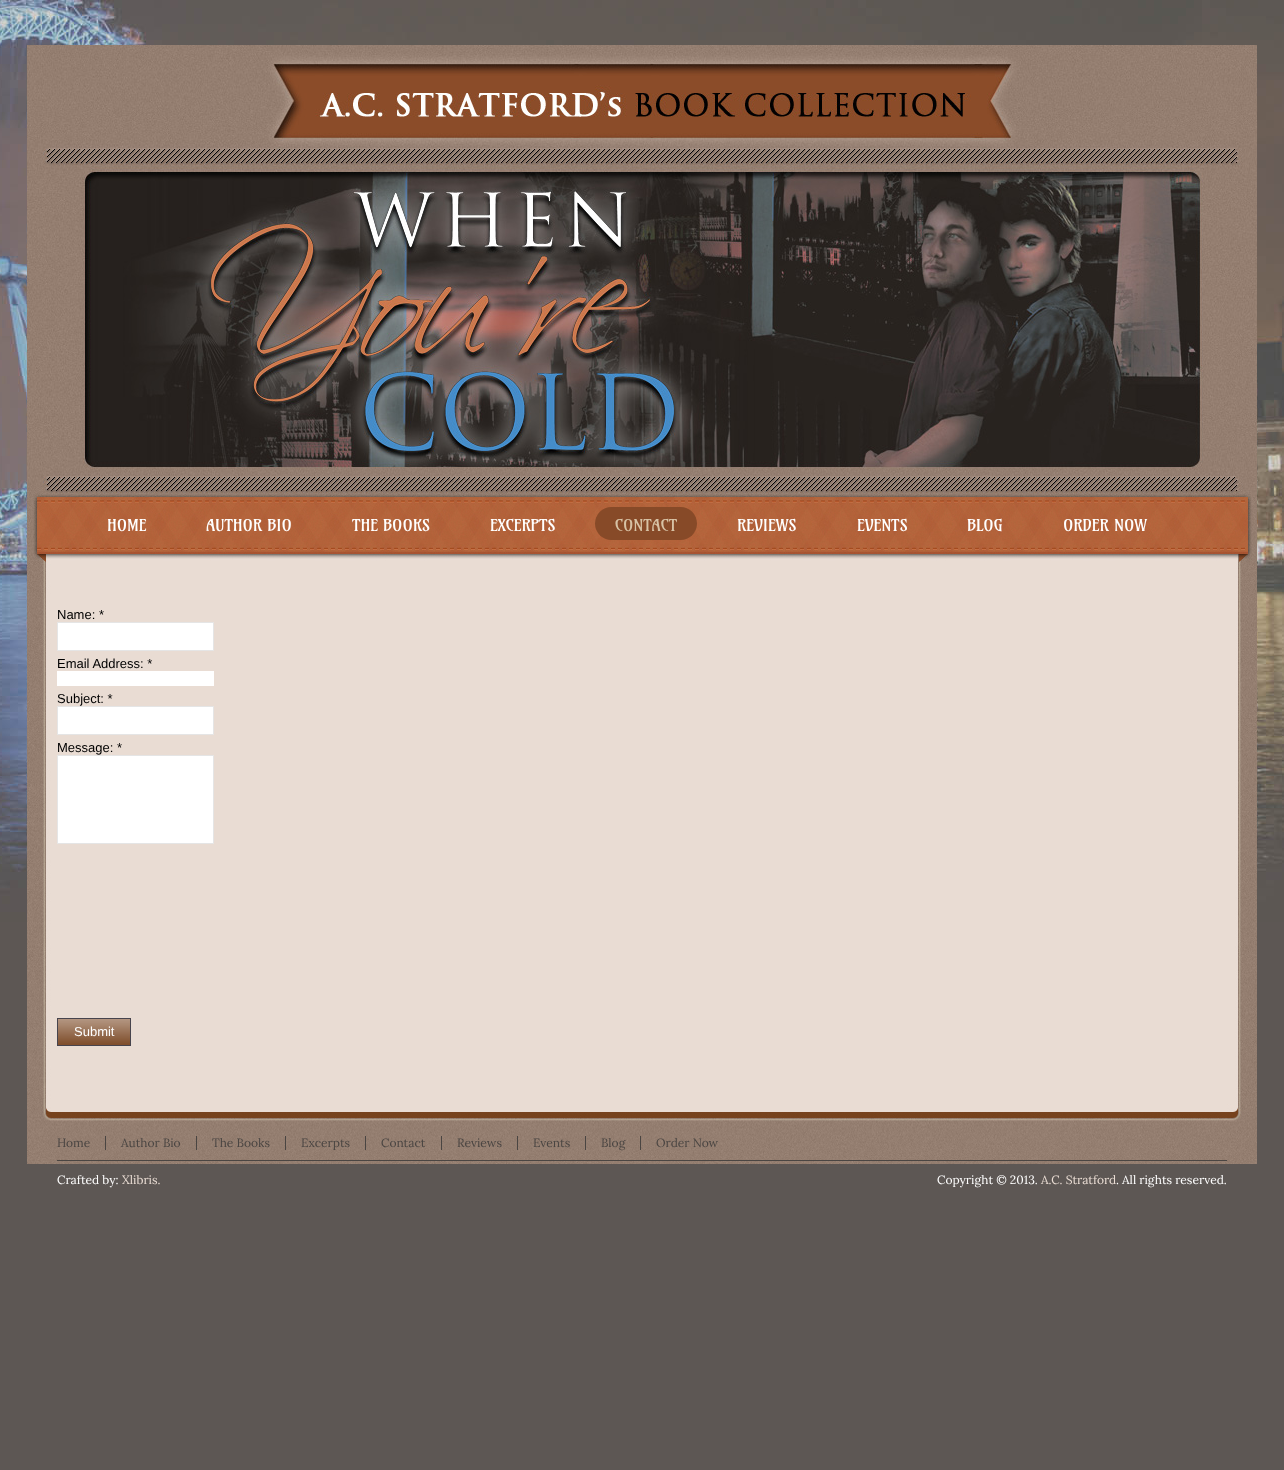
(async () => {
    const canvas = document.querySelector("canvas");
    canvas.width = 1284;
    canvas.height = 1470;
    const context = canvas.getContext("2d");
    context.miterLimit = 4;
    context.fontKerning = "normal";
    function write(s, x, y, font, color) {
        context.font = font;
        context.fillStyle = color;
        context.fillText(s, x, y);
    }
    function block(x, y, w, h, color) {
        context.fillStyle = color;
        context.fillRect(x, y, w, h);
    }
    function card(x, y, w, h, r, color) {
        context.fillStyle = color;
        context.beginPath();
        context.roundRect(x, y, w, h, r);
        context.fill();
    }
    async function photo(src, x, y, w, h) {
        const img = new Image();
        img.src = src;
        await img.decode();
        context.drawImage(img, x, y, w, h);
    }

    block(0, 0, 1284, 1470, "rgb(93, 87, 84)");
    await photo("media/1.png", 0, 0, 1284, 922);
    await photo("media/2.png", 27, 45, 1230, 452);
    await photo("media/3.png", 27, 497, 1230, 70);
    write("HOME", 107, 531, "16px Amarante", "rgb(255, 255, 255)");
    write("AUTHOR BIO", 206, 531, "16px Amarante", "rgb(255, 255, 255)");
    write("THE BOOKS", 352, 531, "16px Amarante", "rgb(255, 255, 255)");
    write("EXCERPTS", 490, 531, "16px Amarante", "rgb(255, 255, 255)");
    card(595, 507, 102, 33, 16.5, "rgb(135, 74, 40)");
    write("CONTACT", 615, 531, "16px Amarante", "rgb(215, 194, 165)");
    write("REVIEWS", 737, 531, "16px Amarante", "rgb(255, 255, 255)");
    write("EVENTS", 857, 531, "16px Amarante", "rgb(255, 255, 255)");
    write("BLOG", 967, 531, "16px Amarante", "rgb(255, 255, 255)");
    write("ORDER NOW", 1063, 531, "16px Amarante", "rgb(255, 255, 255)");
    await photo("media/4.png", 27, 567, 1230, 529);
    write("Name: *", 57, 619, "13px Liberation Sans", "rgb(0, 0, 0)");
    context.fillStyle = "rgb(255, 255, 255)";
    context.beginPath();
    context.rect(57.5, 622.5, 156, 28);
    context.fill();
    context.strokeStyle = "rgb(229, 229, 229)";
    context.stroke();
    write("Email Address: *", 57, 668, "13px Liberation Sans", "rgb(0, 0, 0)");
    block(57, 671, 157, 15, "rgb(255, 255, 255)");
    write("Subject: *", 57, 703, "13px Liberation Sans", "rgb(0, 0, 0)");
    context.fillStyle = "rgb(255, 255, 255)";
    context.beginPath();
    context.rect(57.5, 706.5, 156, 28);
    context.fill();
    context.stroke();
    write("Message: *", 57, 752, "13px Liberation Sans", "rgb(0, 0, 0)");
    context.fillStyle = "rgb(255, 255, 255)";
    context.beginPath();
    context.rect(57.5, 755.5, 156, 88);
    context.fill();
    context.stroke();
    block(58, 1019, 72, 26, "rgb(119, 67, 30)");
    await photo("media/5.png", 58, 1019, 72, 26);
    context.strokeStyle = "rgb(71, 68, 77)";
    context.strokeRect(57.5, 1018.5, 73, 27);
    write("Submit", 74, 1036, "13px Liberation Sans", "rgb(255, 255, 255)");
    await photo("media/6.png", 27, 1096, 1230, 68);
    block(105, 1136, 1, 14, "rgb(74, 69, 66)");
    write("Home", 57, 1147, "12px Lora", "rgb(74, 69, 66)");
    block(196, 1136, 1, 14, "rgb(74, 69, 66)");
    write("Author Bio", 121, 1147, "12px Lora", "rgb(74, 69, 66)");
    block(285, 1136, 1, 14, "rgb(74, 69, 66)");
    write("The Books", 212, 1147, "12px Lora", "rgb(74, 69, 66)");
    block(365, 1136, 1, 14, "rgb(74, 69, 66)");
    write("Excerpts", 301, 1147, "12px Lora", "rgb(74, 69, 66)");
    block(441, 1136, 1, 14, "rgb(74, 69, 66)");
    write("Contact", 381, 1147, "12px Lora", "rgb(74, 69, 66)");
    block(517, 1136, 1, 14, "rgb(74, 69, 66)");
    write("Reviews", 457, 1147, "12px Lora", "rgb(74, 69, 66)");
    block(585, 1136, 1, 14, "rgb(74, 69, 66)");
    write("Events", 533, 1147, "12px Lora", "rgb(74, 69, 66)");
    block(640, 1136, 1, 14, "rgb(74, 69, 66)");
    write("Blog", 601, 1147, "12px Lora", "rgb(74, 69, 66)");
    write("Order Now", 656, 1147, "12px Lora", "rgb(74, 69, 66)");
    block(57, 1160, 1170, 1, "rgb(74, 69, 66)");
    write("Crafted by:", 57, 1184, "12px Lora", "rgb(255, 255, 255)");
    write("Xlibris.", 122, 1184, "12px Lora", "rgb(233, 220, 211)");
    write("Copyright © 2013.", 937, 1184, "12px Lora", "rgb(255, 255, 255)");
    write("A.C. Stratford", 1041, 1184, "12px Lora", "rgb(233, 220, 211)");
    write(". All rights reserved.", 1116, 1184, "12px Lora", "rgb(255, 255, 255)");
})();
